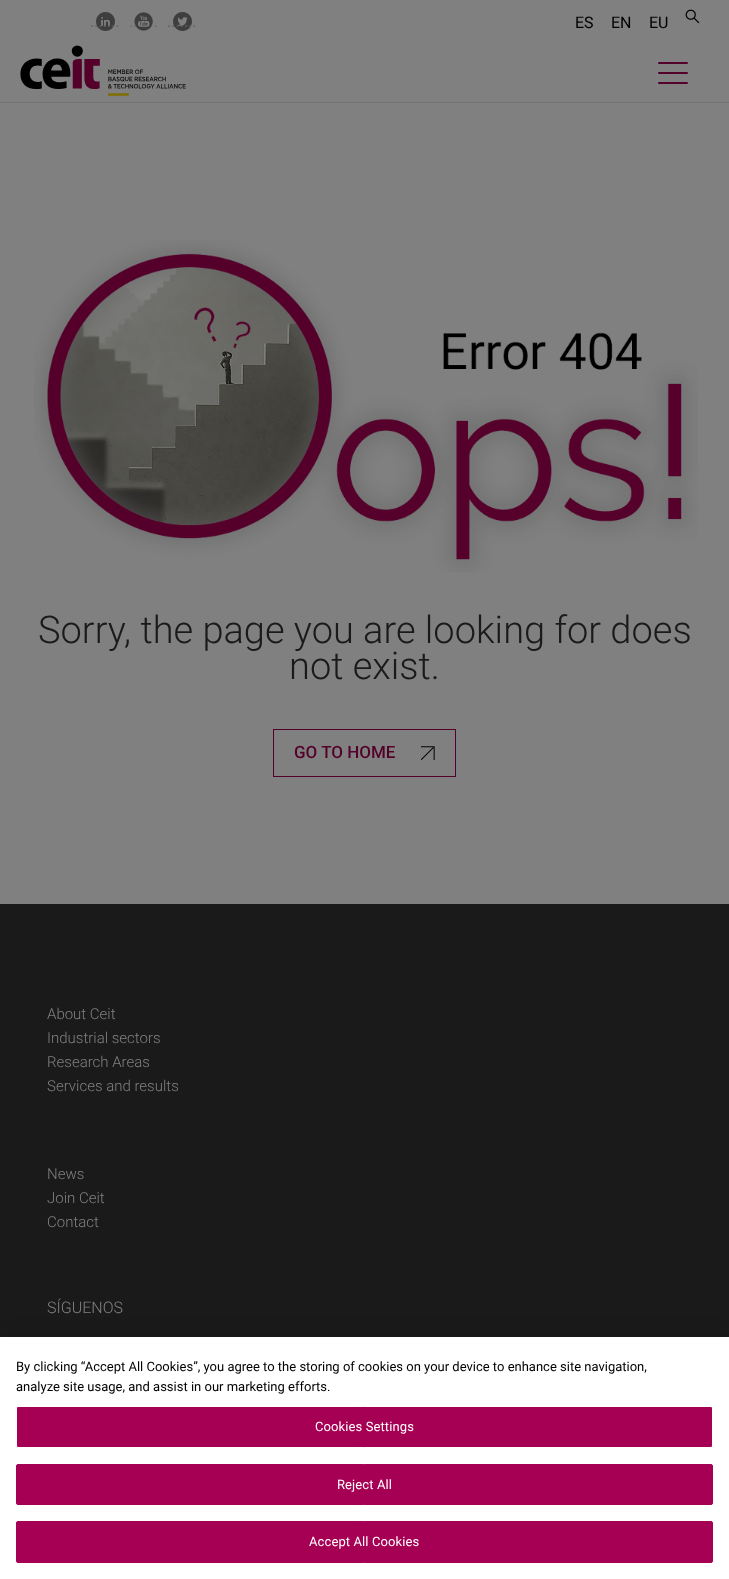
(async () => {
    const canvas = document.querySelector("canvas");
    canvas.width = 729;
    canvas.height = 1579;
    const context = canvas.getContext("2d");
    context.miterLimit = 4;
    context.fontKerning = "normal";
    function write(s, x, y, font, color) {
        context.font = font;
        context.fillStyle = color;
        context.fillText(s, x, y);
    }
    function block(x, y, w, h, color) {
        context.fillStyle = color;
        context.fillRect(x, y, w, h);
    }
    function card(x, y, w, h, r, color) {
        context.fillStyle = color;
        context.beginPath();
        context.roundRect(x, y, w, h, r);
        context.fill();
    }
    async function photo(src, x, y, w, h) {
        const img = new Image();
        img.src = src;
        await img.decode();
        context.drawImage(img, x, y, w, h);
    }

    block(0, 0, 729, 1579, "rgb(128, 128, 128)");
    await photo("media/1.png", 96, 12, 19, 19);
    await photo("media/2.png", 134, 12, 19, 19);
    await photo("media/3.png", 173, 12, 19, 19);
    write(".......", 90, 27, "16px Roboto", "rgb(97, 97, 97)");
    write("..", 129, 27, "16px Roboto", "rgb(108, 108, 108)");
    write(".", 154, 27, "16px Roboto", "rgb(108, 108, 108)");
    write(".......", 167, 27, "16px Roboto", "rgb(97, 97, 97)");
    write("ES", 575, 28, "16px Roboto", "rgb(0, 0, 0)");
    write("EN", 611, 28, "16px Roboto", "rgb(0, 0, 0)");
    write("EU", 649, 28, "16px Roboto", "rgb(0, 0, 0)");
    await photo("media/4.png", 685, 9, 15, 15);
    card(658, 62, 30, 2, 1, "rgb(83, 0, 42)");
    card(658, 72, 30, 2, 1, "rgb(83, 0, 42)");
    card(658, 82, 30, 2, 1, "rgb(83, 0, 42)");
    await photo("media/5.png", 20, 45, 166, 51);
    block(0, 102, 729, 1, "rgb(115, 115, 115)");
    await photo("media/6.png", 34, 240, 664, 332);
    write("Sorry, the page you are looking for does", 38, 643, "300 38px Roboto", "rgb(26, 26, 26)");
    write("not exist.", 289, 679, "300 38px Roboto", "rgb(26, 26, 26)");
    await photo("media/7.png", 421, 746, 14, 14);
    context.strokeStyle = "rgb(83, 0, 42)";
    context.strokeRect(273.5, 729.5, 182, 47);
    write("GO TO HOME", 294, 758, "500 17px Roboto", "rgb(83, 0, 42)");
    block(0, 904, 729, 433, "rgb(26, 26, 26)");
    write("About Ceit", 47, 1019, "300 15px Roboto", "rgb(128, 128, 128)");
    write("Industrial sectors", 47, 1043, "300 15px Roboto", "rgb(128, 128, 128)");
    write("Research Areas", 47, 1067, "300 15px Roboto", "rgb(128, 128, 128)");
    write("Services and results", 47, 1091, "300 15px Roboto", "rgb(128, 128, 128)");
    write("News", 47, 1179, "300 15px Roboto", "rgb(128, 128, 128)");
    write("Join Ceit", 47, 1203, "300 15px Roboto", "rgb(128, 128, 128)");
    write("Contact", 47, 1227, "300 15px Roboto", "rgb(128, 128, 128)");
    write("SÍGUENOS", 47, 1313, "300 16px Roboto", "rgb(128, 128, 128)");
    context.fillStyle = "rgba(0, 0, 0, 0.2)";
    context.filter = "blur(9px)";
    context.beginPath();
    context.rect(0, 1337, 729, 242);
    context.fill();
    context.filter = "none";
    block(0, 1337, 729, 242, "rgb(255, 255, 255)");
    write("By clicking “Accept All Cookies”, you agree to the storing of cookies on your device to enhance site navigation,", 16, 1371, "13px Roboto", "rgb(0, 0, 0)");
    write("analyze site usage, and assist in our marketing efforts.", 16, 1391, "13px Roboto", "rgb(0, 0, 0)");
    context.fillStyle = "rgb(166, 0, 84)";
    context.beginPath();
    context.roundRect(16.5, 1406.5, 696, 41, 1.5);
    context.fill();
    context.strokeStyle = "rgb(255, 255, 255)";
    context.stroke();
    context.letterSpacing = "0.1px";
    write("Cookies Settings", 315, 1431, "13px Roboto", "rgb(255, 255, 255)");
    context.fillStyle = "rgb(166, 0, 84)";
    context.beginPath();
    context.roundRect(16.5, 1464.5, 696, 40, 1.5);
    context.fill();
    context.strokeStyle = "rgb(166, 0, 84)";
    context.stroke();
    write("Reject All", 337, 1489, "13px Roboto", "rgb(255, 255, 255)");
    context.fillStyle = "rgb(166, 0, 84)";
    context.beginPath();
    context.roundRect(16.5, 1521.5, 696, 41, 1.5);
    context.fill();
    context.stroke();
    write("Accept All Cookies", 309, 1546, "13px Roboto", "rgb(255, 255, 255)");
})();
